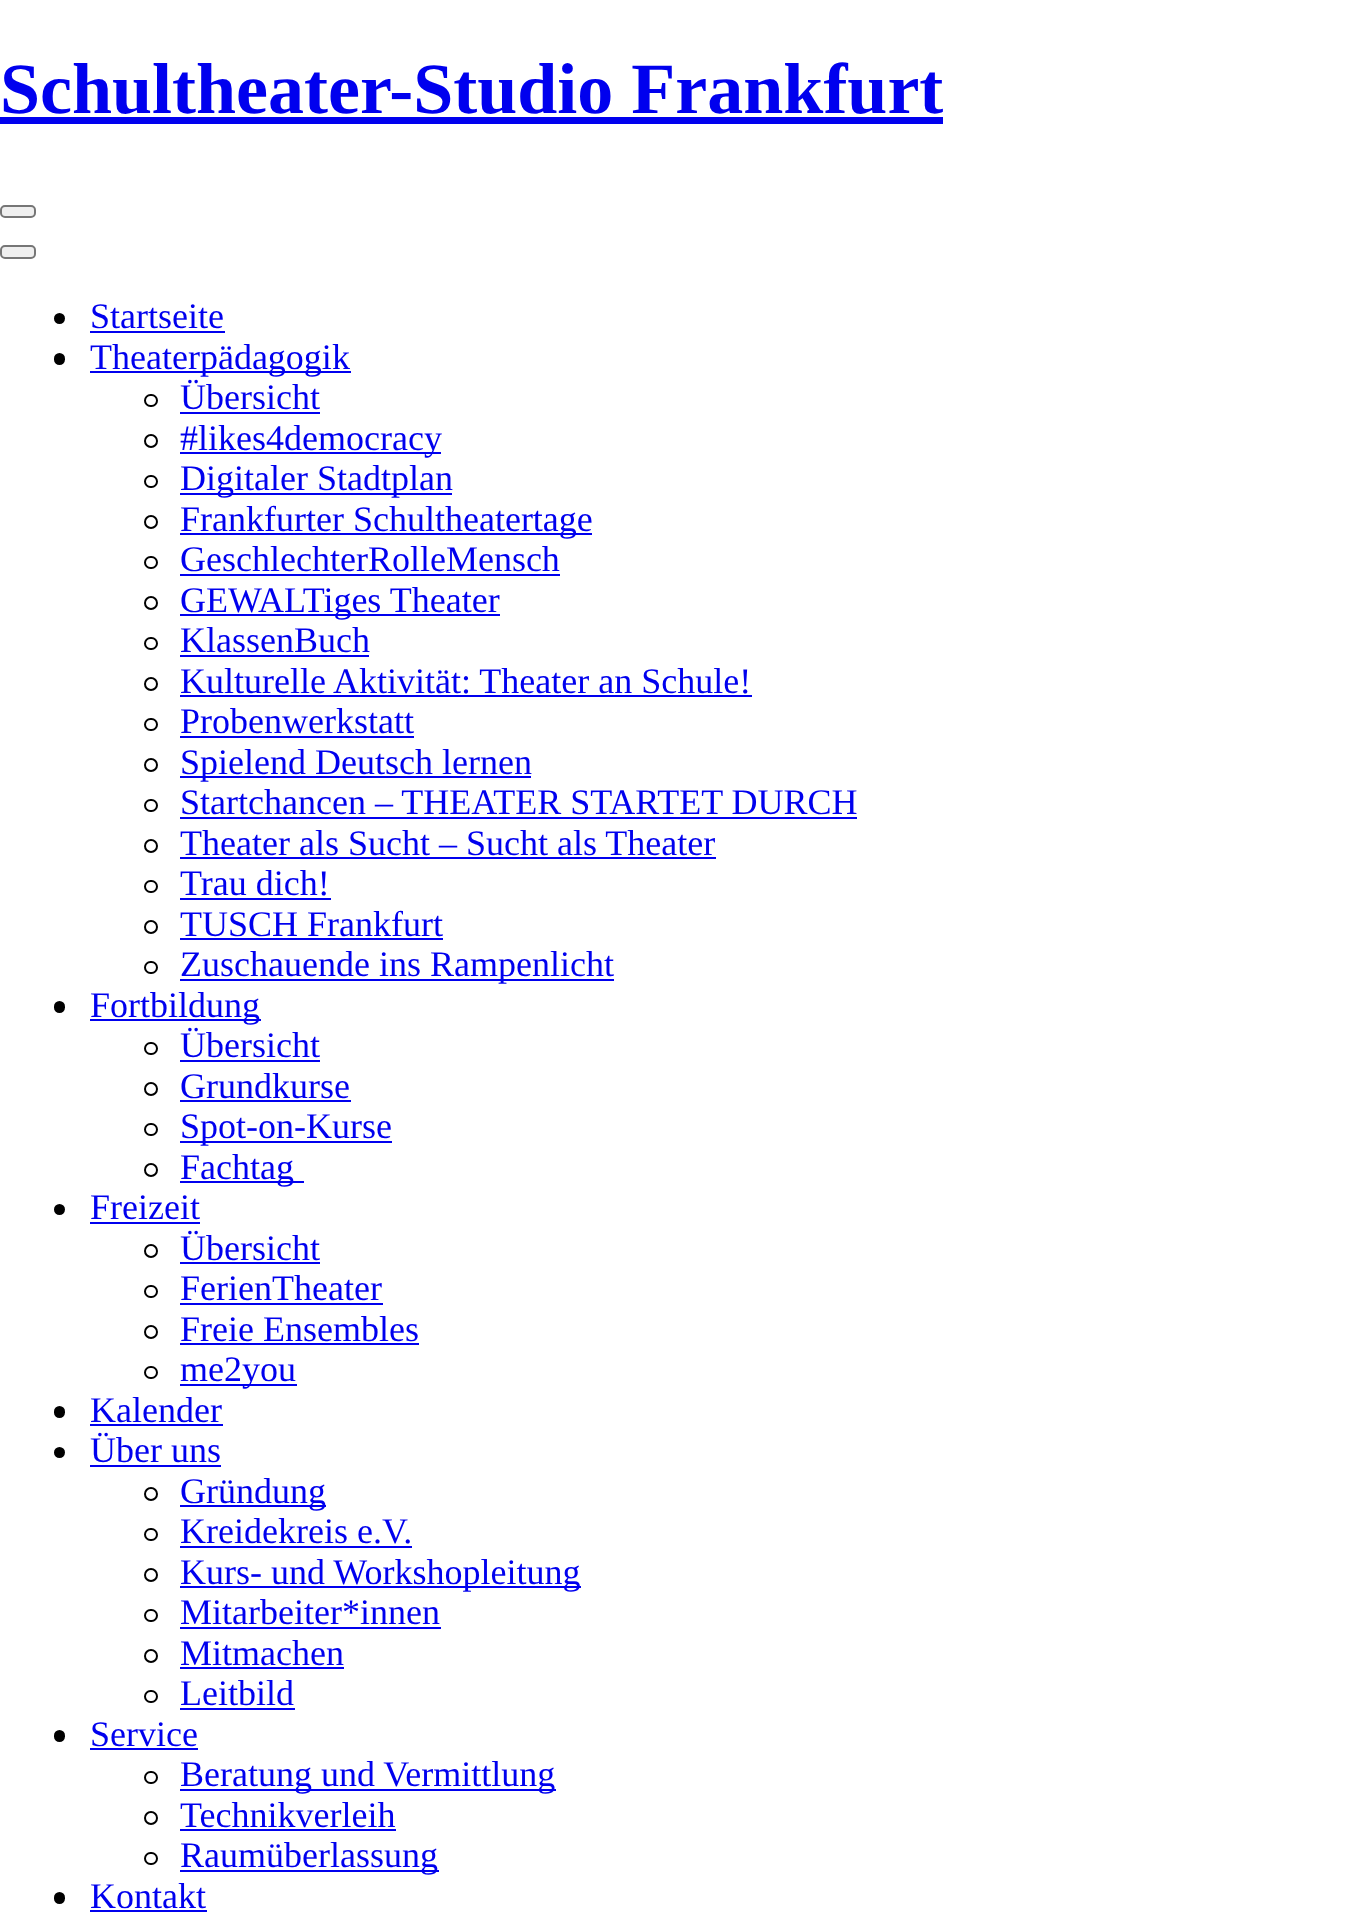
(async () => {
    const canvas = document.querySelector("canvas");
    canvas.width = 1358;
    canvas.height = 1914;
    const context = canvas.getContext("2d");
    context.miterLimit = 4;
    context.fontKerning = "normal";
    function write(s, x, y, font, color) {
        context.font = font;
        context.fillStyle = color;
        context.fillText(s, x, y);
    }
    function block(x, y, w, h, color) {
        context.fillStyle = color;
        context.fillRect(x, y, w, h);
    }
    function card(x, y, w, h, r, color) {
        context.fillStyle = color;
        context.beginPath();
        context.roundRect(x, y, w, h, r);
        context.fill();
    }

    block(0, 0, 1358, 1914, "rgb(255, 255, 255)");
    write("Schultheater-Studio Frankfurt", 0, 113, "bold 72px Liberation Serif", "rgb(0, 0, 238)");
    block(0, 117, 943, 7, "rgb(0, 0, 238)");
    context.fillStyle = "rgb(239, 239, 239)";
    context.beginPath();
    context.roundRect(1, 206, 34, 11, 4);
    context.fill();
    context.strokeStyle = "rgb(118, 118, 118)";
    context.lineWidth = 2;
    context.stroke();
    context.beginPath();
    context.roundRect(1, 246, 34, 12, 4);
    context.fill();
    context.stroke();
    context.fillStyle = "rgb(0, 0, 0)";
    context.beginPath();
    context.arc(59.5, 318.5, 5.5, 0, Math.PI * 2);
    context.fill();
    write("Startseite", 90, 328, "36px Liberation Serif", "rgb(0, 0, 238)");
    block(90, 331, 135, 2, "rgb(0, 0, 238)");
    card(54, 353, 11, 12, 5.5, "rgb(0, 0, 0)");
    block(90, 371, 261, 2, "rgb(0, 0, 238)");
    write("Theaterpädagogik", 90, 369, "36px Liberation Serif", "rgb(0, 0, 238)");
    context.beginPath();
    context.roundRect(145, 395, 12, 11, 5.5);
    context.strokeStyle = "rgb(0, 0, 0)";
    context.stroke();
    write("Übersicht", 180, 409, "36px Liberation Serif", "rgb(0, 0, 238)");
    block(180, 412, 140, 2, "rgb(0, 0, 238)");
    context.beginPath();
    context.arc(151, 441, 6, 0, Math.PI * 2);
    context.stroke();
    block(180, 452, 261, 2, "rgb(0, 0, 238)");
    write("#likes4democracy", 180, 450, "36px Liberation Serif", "rgb(0, 0, 238)");
    context.beginPath();
    context.roundRect(145, 476, 12, 11, 5.5);
    context.stroke();
    block(180, 493, 272, 2, "rgb(0, 0, 238)");
    write("Digitaler Stadtplan", 180, 490, "36px Liberation Serif", "rgb(0, 0, 238)");
    context.beginPath();
    context.arc(151, 522, 6, 0, Math.PI * 2);
    context.stroke();
    block(180, 533, 412, 2, "rgb(0, 0, 238)");
    write("Frankfurter Schultheatertage", 180, 531, "36px Liberation Serif", "rgb(0, 0, 238)");
    context.beginPath();
    context.roundRect(145, 557, 12, 11, 5.5);
    context.stroke();
    write("GeschlechterRolleMensch", 180, 571, "36px Liberation Serif", "rgb(0, 0, 238)");
    block(180, 574, 380, 2, "rgb(0, 0, 238)");
    context.beginPath();
    context.arc(151, 603, 6, 0, Math.PI * 2);
    context.stroke();
    block(180, 614, 320, 2, "rgb(0, 0, 238)");
    write("GEWALTiges Theater", 180, 612, "36px Liberation Serif", "rgb(0, 0, 238)");
    context.beginPath();
    context.roundRect(145, 638, 12, 11, 5.5);
    context.stroke();
    write("KlassenBuch", 180, 652, "36px Liberation Serif", "rgb(0, 0, 238)");
    block(180, 655, 189, 2, "rgb(0, 0, 238)");
    context.beginPath();
    context.arc(151, 684, 6, 0, Math.PI * 2);
    context.stroke();
    write("Kulturelle Aktivität: Theater an Schule!", 180, 693, "36px Liberation Serif", "rgb(0, 0, 238)");
    block(180, 695, 572, 2, "rgb(0, 0, 238)");
    context.beginPath();
    context.roundRect(145, 719, 12, 11, 5.5);
    context.stroke();
    write("Probenwerkstatt", 180, 733, "36px Liberation Serif", "rgb(0, 0, 238)");
    block(180, 736, 234, 2, "rgb(0, 0, 238)");
    context.beginPath();
    context.arc(151, 765, 6, 0, Math.PI * 2);
    context.stroke();
    block(180, 776, 351, 2, "rgb(0, 0, 238)");
    write("Spielend Deutsch lernen", 180, 774, "36px Liberation Serif", "rgb(0, 0, 238)");
    context.beginPath();
    context.roundRect(145, 800, 12, 11, 5.5);
    context.stroke();
    write("Startchancen – THEATER STARTET DURCH", 180, 814, "36px Liberation Serif", "rgb(0, 0, 238)");
    block(180, 817, 677, 2, "rgb(0, 0, 238)");
    context.beginPath();
    context.arc(151, 846, 6, 0, Math.PI * 2);
    context.stroke();
    write("Theater als Sucht – Sucht als Theater", 180, 855, "36px Liberation Serif", "rgb(0, 0, 238)");
    block(180, 857, 536, 2, "rgb(0, 0, 238)");
    context.beginPath();
    context.roundRect(145, 881, 12, 11, 5.5);
    context.stroke();
    write("Trau dich!", 180, 895, "36px Liberation Serif", "rgb(0, 0, 238)");
    block(180, 898, 151, 2, "rgb(0, 0, 238)");
    context.beginPath();
    context.arc(151, 927, 6, 0, Math.PI * 2);
    context.stroke();
    write("TUSCH Frankfurt", 180, 936, "36px Liberation Serif", "rgb(0, 0, 238)");
    block(180, 938, 263, 2, "rgb(0, 0, 238)");
    context.beginPath();
    context.roundRect(145, 962, 12, 11, 5.5);
    context.stroke();
    block(180, 979, 434, 2, "rgb(0, 0, 238)");
    write("Zuschauende ins Rampenlicht", 180, 976, "36px Liberation Serif", "rgb(0, 0, 238)");
    card(54, 1001, 11, 12, 5.5, "rgb(0, 0, 0)");
    block(90, 1019, 171, 2, "rgb(0, 0, 238)");
    write("Fortbildung", 90, 1017, "36px Liberation Serif", "rgb(0, 0, 238)");
    context.beginPath();
    context.roundRect(145, 1043, 12, 11, 5.5);
    context.stroke();
    write("Übersicht", 180, 1057, "36px Liberation Serif", "rgb(0, 0, 238)");
    block(180, 1060, 140, 2, "rgb(0, 0, 238)");
    context.beginPath();
    context.arc(151, 1089, 6, 0, Math.PI * 2);
    context.stroke();
    write("Grundkurse", 180, 1098, "36px Liberation Serif", "rgb(0, 0, 238)");
    block(180, 1100, 171, 2, "rgb(0, 0, 238)");
    context.beginPath();
    context.roundRect(145, 1124, 12, 11, 5.5);
    context.stroke();
    block(180, 1141, 212, 2, "rgb(0, 0, 238)");
    write("Spot-on-Kurse", 180, 1138, "36px Liberation Serif", "rgb(0, 0, 238)");
    context.beginPath();
    context.arc(151, 1170, 6, 0, Math.PI * 2);
    context.stroke();
    block(180, 1181, 124, 2, "rgb(0, 0, 238)");
    write("Fachtag", 180, 1179, "36px Liberation Serif", "rgb(0, 0, 238)");
    context.fillStyle = "rgb(0, 0, 0)";
    context.beginPath();
    context.arc(59.5, 1209.5, 5.5, 0, Math.PI * 2);
    context.fill();
    write("Freizeit", 90, 1219, "36px Liberation Serif", "rgb(0, 0, 238)");
    block(90, 1222, 110, 2, "rgb(0, 0, 238)");
    context.beginPath();
    context.arc(151, 1251, 6, 0, Math.PI * 2);
    context.stroke();
    write("Übersicht", 180, 1260, "36px Liberation Serif", "rgb(0, 0, 238)");
    block(180, 1262, 140, 2, "rgb(0, 0, 238)");
    context.beginPath();
    context.roundRect(145, 1286, 12, 11, 5.5);
    context.stroke();
    write("FerienTheater", 180, 1300, "36px Liberation Serif", "rgb(0, 0, 238)");
    block(180, 1303, 203, 2, "rgb(0, 0, 238)");
    context.beginPath();
    context.arc(151, 1332, 6, 0, Math.PI * 2);
    context.stroke();
    write("Freie Ensembles", 180, 1341, "36px Liberation Serif", "rgb(0, 0, 238)");
    block(180, 1343, 239, 2, "rgb(0, 0, 238)");
    context.beginPath();
    context.roundRect(145, 1367, 12, 11, 5.5);
    context.stroke();
    block(180, 1384, 117, 2, "rgb(0, 0, 238)");
    write("me2you", 180, 1381, "36px Liberation Serif", "rgb(0, 0, 238)");
    card(54, 1406, 11, 12, 5.5, "rgb(0, 0, 0)");
    write("Kalender", 90, 1422, "36px Liberation Serif", "rgb(0, 0, 238)");
    block(90, 1424, 133, 2, "rgb(0, 0, 238)");
    context.fillStyle = "rgb(0, 0, 0)";
    context.beginPath();
    context.arc(59.5, 1452.5, 5.5, 0, Math.PI * 2);
    context.fill();
    write("Über uns", 90, 1462, "36px Liberation Serif", "rgb(0, 0, 238)");
    block(90, 1465, 131, 2, "rgb(0, 0, 238)");
    context.beginPath();
    context.arc(151, 1494, 6, 0, Math.PI * 2);
    context.stroke();
    block(180, 1505, 146, 2, "rgb(0, 0, 238)");
    write("Gründung", 180, 1503, "36px Liberation Serif", "rgb(0, 0, 238)");
    context.beginPath();
    context.roundRect(145, 1529, 12, 11, 5.5);
    context.stroke();
    write("Kreidekreis e.V.", 180, 1543, "36px Liberation Serif", "rgb(0, 0, 238)");
    block(180, 1546, 232, 2, "rgb(0, 0, 238)");
    context.beginPath();
    context.arc(151, 1575, 6, 0, Math.PI * 2);
    context.stroke();
    block(180, 1586, 401, 2, "rgb(0, 0, 238)");
    write("Kurs- und Workshopleitung", 180, 1584, "36px Liberation Serif", "rgb(0, 0, 238)");
    context.beginPath();
    context.roundRect(145, 1610, 12, 11, 5.5);
    context.stroke();
    write("Mitarbeiter*innen", 180, 1624, "36px Liberation Serif", "rgb(0, 0, 238)");
    block(180, 1627, 261, 2, "rgb(0, 0, 238)");
    context.beginPath();
    context.arc(151, 1656, 6, 0, Math.PI * 2);
    context.stroke();
    write("Mitmachen", 180, 1665, "36px Liberation Serif", "rgb(0, 0, 238)");
    block(180, 1667, 164, 2, "rgb(0, 0, 238)");
    context.beginPath();
    context.roundRect(145, 1691, 12, 11, 5.5);
    context.stroke();
    write("Leitbild", 180, 1705, "36px Liberation Serif", "rgb(0, 0, 238)");
    block(180, 1708, 115, 2, "rgb(0, 0, 238)");
    card(54, 1730, 11, 12, 5.5, "rgb(0, 0, 0)");
    write("Service", 90, 1746, "36px Liberation Serif", "rgb(0, 0, 238)");
    block(90, 1748, 108, 2, "rgb(0, 0, 238)");
    context.beginPath();
    context.roundRect(145, 1772, 12, 11, 5.5);
    context.stroke();
    block(180, 1789, 376, 2, "rgb(0, 0, 238)");
    write("Beratung und Vermittlung", 180, 1786, "36px Liberation Serif", "rgb(0, 0, 238)");
    context.beginPath();
    context.arc(151, 1818, 6, 0, Math.PI * 2);
    context.stroke();
    write("Technikverleih", 180, 1827, "36px Liberation Serif", "rgb(0, 0, 238)");
    block(180, 1829, 216, 2, "rgb(0, 0, 238)");
    context.beginPath();
    context.roundRect(145, 1853, 12, 11, 5.5);
    context.stroke();
    block(180, 1870, 259, 2, "rgb(0, 0, 238)");
    write("Raumüberlassung", 180, 1867, "36px Liberation Serif", "rgb(0, 0, 238)");
    card(54, 1892, 11, 12, 5.5, "rgb(0, 0, 0)");
    write("Kontakt", 90, 1908, "36px Liberation Serif", "rgb(0, 0, 238)");
    block(90, 1910, 117, 2, "rgb(0, 0, 238)");
})();
